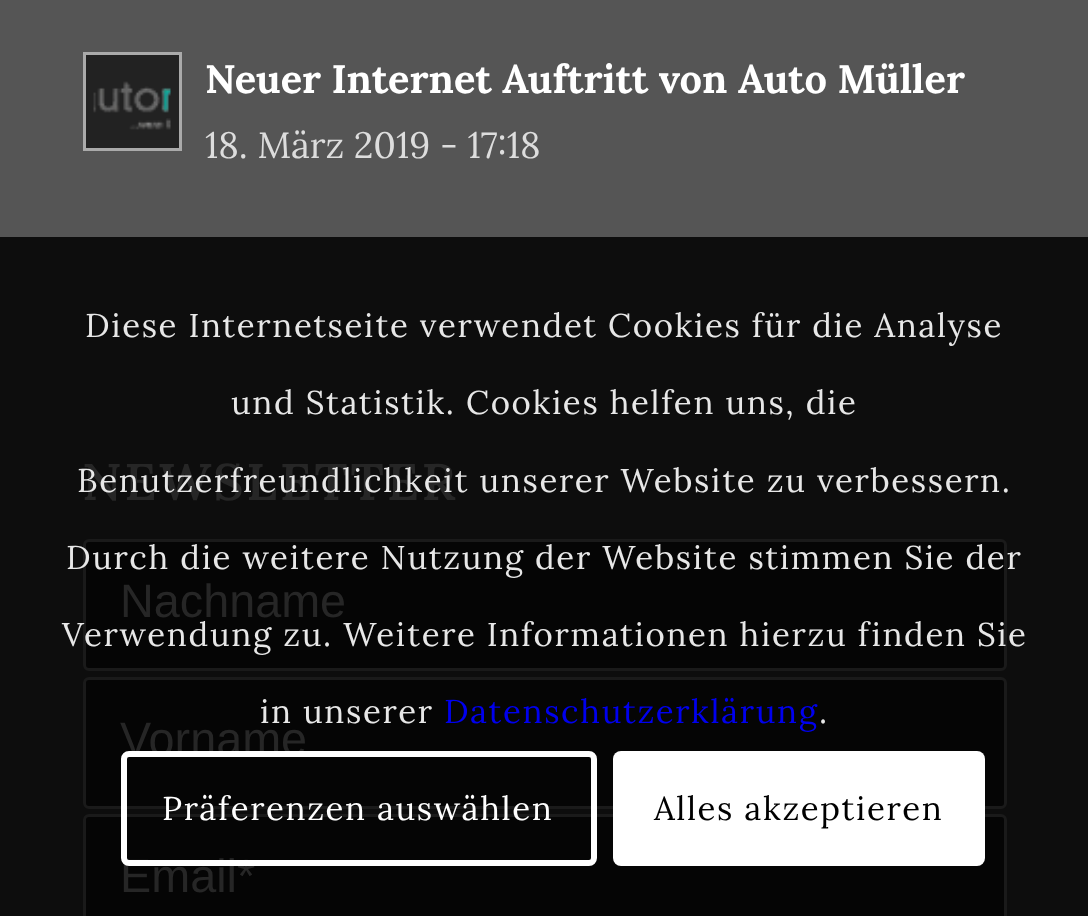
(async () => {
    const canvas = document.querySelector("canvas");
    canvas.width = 1088;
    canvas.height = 916;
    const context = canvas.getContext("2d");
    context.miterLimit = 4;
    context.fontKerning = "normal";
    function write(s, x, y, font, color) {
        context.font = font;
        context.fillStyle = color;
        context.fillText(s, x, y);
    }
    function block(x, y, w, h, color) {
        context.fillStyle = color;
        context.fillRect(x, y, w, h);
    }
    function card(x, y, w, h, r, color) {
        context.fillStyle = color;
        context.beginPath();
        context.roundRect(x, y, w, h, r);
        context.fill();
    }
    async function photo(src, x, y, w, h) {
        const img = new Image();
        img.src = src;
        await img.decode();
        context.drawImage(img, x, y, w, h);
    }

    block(0, 0, 1088, 916, "rgb(85, 85, 85)");
    block(0, 237, 1088, 679, "rgb(13, 13, 13)");
    context.fillStyle = "rgb(34, 34, 34)";
    context.beginPath();
    context.rect(84.5, 53.5, 96, 96);
    context.fill();
    context.strokeStyle = "rgb(170, 170, 170)";
    context.lineWidth = 3;
    context.stroke();
    await photo("media/1.png", 93, 81, 78, 49);
    write("Neuer Internet Auftritt von Auto Müller", 205, 93, "bold 39.75px Lora", "rgb(255, 255, 255)");
    write("18. März 2019 - 17:18", 205, 158, "36.5px Lora", "rgb(221, 221, 221)");
    context.letterSpacing = "2.75px";
    write("NEWSLETTER", 82, 500, "600 51.5px Lora", "rgb(38, 38, 38)");
    context.fillStyle = "rgb(5, 5, 5)";
    context.beginPath();
    context.roundRect(84.5, 540.5, 921, 129, 4.5);
    context.fill();
    context.strokeStyle = "rgb(26, 26, 26)";
    context.stroke();
    context.letterSpacing = "0px";
    write("Nachname", 120, 617, "46.75px Liberation Sans", "rgb(38, 38, 38)");
    context.fillStyle = "rgb(5, 5, 5)";
    context.beginPath();
    context.roundRect(84.5, 678.5, 921, 129, 4.5);
    context.fill();
    context.stroke();
    write("Vorname", 120, 755, "46.75px Liberation Sans", "rgb(38, 38, 38)");
    context.fillStyle = "rgb(5, 5, 5)";
    context.beginPath();
    context.roundRect(84.5, 815.5, 921, 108, 4.5);
    context.fill();
    context.stroke();
    write("Email*", 120, 892, "46.75px Liberation Sans", "rgb(38, 38, 38)");
    context.letterSpacing = "1.65px";
    write("Diese Internetseite verwendet Cookies für die Analyse", 85, 337, "33px Lora", "rgb(231, 231, 231)");
    write("und Statistik. Cookies helfen uns, die", 231, 414, "33px Lora", "rgb(231, 231, 231)");
    write("Benutzerfreundlichkeit unserer Website zu verbessern.", 77, 492, "33px Lora", "rgb(231, 231, 231)");
    write("Durch die weitere Nutzung der Website stimmen Sie der", 66, 569, "33px Lora", "rgb(231, 231, 231)");
    write("Verwendung zu. Weitere Informationen hierzu finden Sie", 62, 646, "33px Lora", "rgb(231, 231, 231)");
    write("in unserer", 260, 723, "33px Lora", "rgb(231, 231, 231)");
    write("Datenschutzerklärung", 444, 723, "33px Lora", "rgb(0, 0, 238)");
    write(".", 819, 723, "33px Lora", "rgb(231, 231, 231)");
    context.beginPath();
    context.roundRect(124, 754, 470, 109, 5);
    context.strokeStyle = "rgb(255, 255, 255)";
    context.lineWidth = 6;
    context.stroke();
    write("Präferenzen auswählen", 162, 820, "33px Lora", "rgb(255, 255, 255)");
    card(613, 751, 372, 115, 8, "rgb(255, 255, 255)");
    write("Alles akzeptieren", 654, 820, "33px Lora", "rgb(0, 0, 0)");
})();
